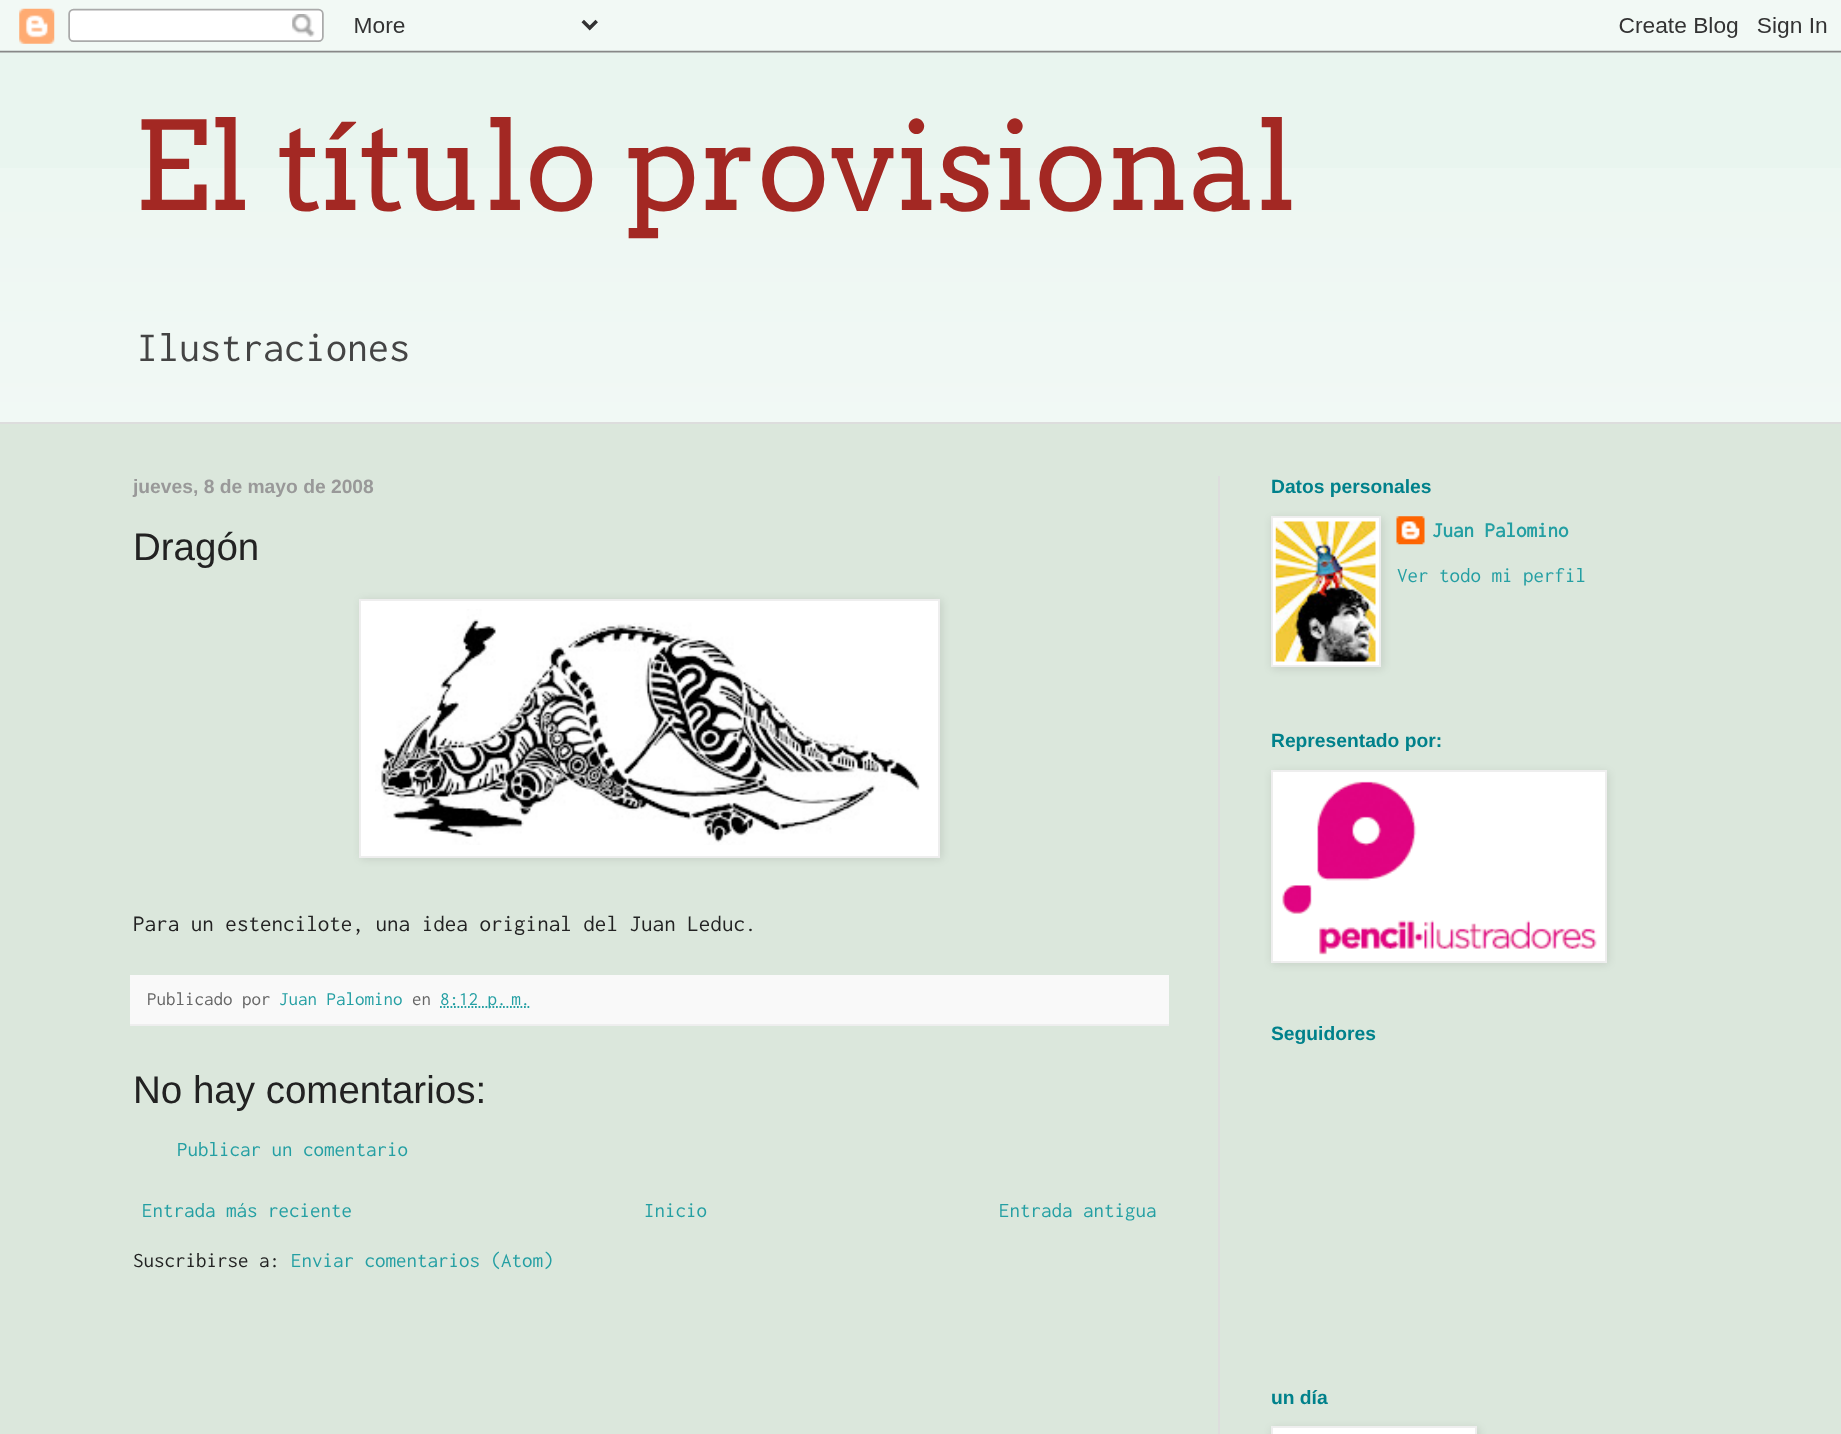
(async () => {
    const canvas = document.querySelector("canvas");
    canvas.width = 1841;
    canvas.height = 1434;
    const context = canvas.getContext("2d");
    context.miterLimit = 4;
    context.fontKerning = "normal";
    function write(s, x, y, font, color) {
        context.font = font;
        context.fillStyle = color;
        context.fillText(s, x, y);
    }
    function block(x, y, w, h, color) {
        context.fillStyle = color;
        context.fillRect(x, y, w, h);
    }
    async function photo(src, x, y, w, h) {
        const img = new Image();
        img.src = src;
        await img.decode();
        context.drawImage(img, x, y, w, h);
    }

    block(0, 0, 1841, 1434, "rgb(233, 245, 239)");
    await photo("media/1.png", 0, 0, 1841, 53);
    await photo("media/6.png", 0, 168, 1841, 254);
    write("El título provisional", 133, 210, "122.5px Arvo", "rgb(163, 40, 35)");
    write("Ilustraciones", 137, 361, "42px Inconsolata", "rgb(68, 68, 68)");
    block(0, 424, 1841, 1010, "rgb(219, 231, 220)");
    block(0, 422, 1841, 2, "rgb(221, 221, 221)");
    block(1218, 476, 2, 958, "rgb(221, 221, 221)");
    write("jueves, 8 de mayo de 2008", 133, 493, "bold 19.25px Liberation Sans", "rgb(153, 153, 153)");
    write("Dragón", 133, 560, "38.5px Liberation Sans", "rgb(34, 34, 34)");
    context.fillStyle = "rgba(0, 0, 0, 0.1)";
    context.filter = "blur(4.5px)";
    context.beginPath();
    context.rect(361, 600, 581, 259);
    context.fill();
    context.filter = "none";
    context.fillStyle = "rgb(255, 255, 255)";
    context.beginPath();
    context.rect(360, 600, 579, 257);
    context.fill();
    context.strokeStyle = "rgb(238, 238, 238)";
    context.lineWidth = 2;
    context.stroke();
    await photo("media/2.png", 375, 609, 545, 236);
    write("Para un estencilote, una idea original del Juan Leduc.", 133, 931, "23.1px Inconsolata", "rgb(34, 34, 34)");
    block(130, 975, 1039, 49, "rgb(249, 249, 249)");
    block(130, 1024, 1039, 2, "rgb(238, 238, 238)");
    write("Publicado por", 147, 1005, "19px Inconsolata", "rgb(102, 102, 102)");
    write("Juan Palomino", 279, 1005, "19px Inconsolata", "rgb(36, 159, 163)");
    write("en", 412, 1005, "19px Inconsolata", "rgb(102, 102, 102)");
    context.beginPath();
    context.moveTo(440, 1007);
    context.lineTo(529.5, 1007);
    context.strokeStyle = "rgb(36, 159, 163)";
    context.lineWidth = 1.8;
    context.setLineDash([1.75, 1.75]);
    context.stroke();
    write("8:12 p. m.", 440, 1005, "19px Inconsolata", "rgb(36, 159, 163)");
    write("No hay comentarios:", 133, 1103, "38.5px Liberation Sans", "rgb(34, 34, 34)");
    write("Publicar un comentario", 177, 1156, "21px Inconsolata", "rgb(36, 159, 163)");
    write("Entrada más reciente", 142, 1217, "21px Inconsolata", "rgb(36, 159, 163)");
    write("Inicio", 644, 1217, "21px Inconsolata", "rgb(36, 159, 163)");
    write("Entrada antigua", 999, 1217, "21px Inconsolata", "rgb(36, 159, 163)");
    write("Suscribirse a:", 133, 1267, "21px Inconsolata", "rgb(34, 34, 34)");
    write("Enviar comentarios (Atom)", 291, 1267, "21px Inconsolata", "rgb(36, 159, 163)");
    write("Datos personales", 1271, 493, "bold 19.25px Liberation Sans", "rgb(0, 129, 139)");
    await photo("media/4.png", 1396, 516, 29, 29);
    context.fillStyle = "rgba(0, 0, 0, 0.1)";
    context.filter = "blur(4.5px)";
    context.beginPath();
    context.rect(1272, 518, 111, 151);
    context.fill();
    context.filter = "none";
    context.fillStyle = "rgb(255, 255, 255)";
    context.beginPath();
    context.rect(1272, 517, 108, 149);
    context.fill();
    context.strokeStyle = "rgb(238, 238, 238)";
    context.lineWidth = 2;
    context.setLineDash([]);
    context.stroke();
    await photo("media/3.png", 1275, 521, 101, 141);
    write("Juan Palomino", 1432, 537, "bold 21px Inconsolata", "rgb(36, 159, 163)");
    write("Ver todo mi perfil", 1397, 582, "21px Inconsolata", "rgb(36, 159, 163)");
    write("Representado por:", 1271, 747, "bold 19.25px Liberation Sans", "rgb(0, 129, 139)");
    context.fillStyle = "rgba(0, 0, 0, 0.1)";
    context.filter = "blur(4.5px)";
    context.beginPath();
    context.rect(1272, 772, 336, 192);
    context.fill();
    context.filter = "none";
    context.fillStyle = "rgb(255, 255, 255)";
    context.beginPath();
    context.rect(1272, 771, 334, 191);
    context.fill();
    context.stroke();
    await photo("media/5.png", 1282, 781, 315, 174);
    write("Seguidores", 1271, 1040, "bold 19.25px Liberation Sans", "rgb(0, 129, 139)");
    write("un día", 1271, 1404, "bold 19.25px Liberation Sans", "rgb(0, 129, 139)");
    context.fillStyle = "rgba(0, 0, 0, 0.1)";
    context.filter = "blur(4.5px)";
    context.beginPath();
    context.rect(1272, 1428, 207, 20);
    context.fill();
    context.filter = "none";
    context.fillStyle = "rgb(255, 255, 255)";
    context.beginPath();
    context.rect(1272, 1427, 204, 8);
    context.fill();
    context.stroke();
})();
